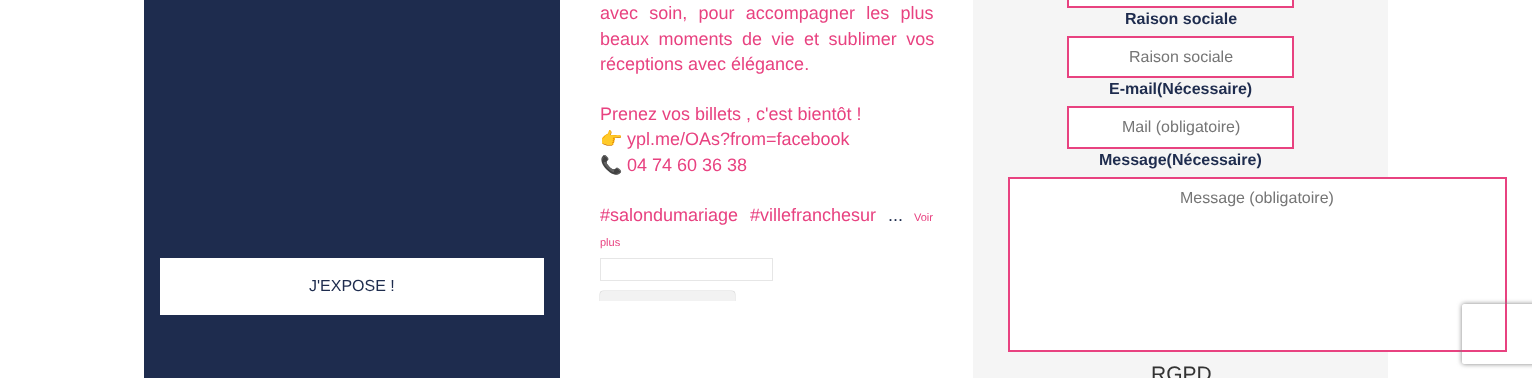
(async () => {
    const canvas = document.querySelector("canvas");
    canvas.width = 1532;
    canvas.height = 378;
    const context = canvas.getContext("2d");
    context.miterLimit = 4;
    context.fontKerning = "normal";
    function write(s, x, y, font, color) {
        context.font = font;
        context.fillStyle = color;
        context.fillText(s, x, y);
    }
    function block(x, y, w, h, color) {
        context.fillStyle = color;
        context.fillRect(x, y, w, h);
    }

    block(0, 0, 1532, 378, "rgb(255, 255, 255)");
    block(144, 0, 416, 378, "rgb(30, 44, 78)");
    block(160, 258, 384, 57, "rgb(255, 255, 255)");
    write("J'EXPOSE !", 309, 291, "16px Liberation Sans", "rgb(30, 44, 78)");
    context.wordSpacing = "6.25px";
    write("avec soin, pour accompagner les plus", 600, 19, "18px Liberation Sans", "rgb(232, 66, 128)");
    context.wordSpacing = "4.5px";
    write("beaux moments de vie et sublimer vos", 600, 45, "18px Liberation Sans", "rgb(232, 66, 128)");
    context.wordSpacing = "0px";
    write("réceptions avec élégance.", 600, 70, "18px Liberation Sans", "rgb(232, 66, 128)");
    write("Prenez vos billets , c'est bientôt !", 600, 120, "18px Liberation Sans", "rgb(232, 66, 128)");
    write("👉", 600, 145, "18px Noto Color Emoji", "rgb(232, 66, 128)");
    write("ypl.me/OAs?from=facebook", 627, 145, "18px Liberation Sans", "rgb(232, 66, 128)");
    write("📞", 600, 171, "18px Noto Color Emoji", "rgb(232, 66, 128)");
    write("04 74 60 36 38", 627, 171, "18px Liberation Sans", "rgb(232, 66, 128)");
    write("#salondumariage", 600, 221, "18px Liberation Sans", "rgb(232, 66, 128)");
    write("#villefranchesur", 750, 221, "18px Liberation Sans", "rgb(232, 66, 128)");
    write("...", 888, 221, "18px Liberation Sans", "rgb(30, 44, 78)");
    write("Voir", 914, 221, "11px Liberation Sans", "rgb(232, 66, 128)");
    write("plus", 600, 246, "11px Liberation Sans", "rgb(232, 66, 128)");
    context.strokeStyle = "rgb(230, 230, 230)";
    context.strokeRect(600.5, 258.5, 172, 22);
    context.save();
    context.beginPath();
    context.rect(575, 0, 383, 301);
    context.clip();
    context.beginPath();
    context.roundRect(599.5, 290.5, 136, 38, 4.5);
    context.strokeStyle = "rgb(237, 237, 237)";
    context.stroke();
    context.restore();
    block(600, 291, 135, 10, "rgba(0, 0, 0, 0.05)");
    block(973, 0, 415, 378, "rgb(245, 245, 245)");
    context.fillStyle = "rgb(255, 255, 255)";
    context.beginPath();
    context.rect(1068, -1, 225, 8);
    context.fill();
    context.strokeStyle = "rgb(232, 66, 128)";
    context.lineWidth = 2;
    context.stroke();
    write("Raison sociale", 1125, 24, "bold 16px Liberation Sans", "rgb(30, 44, 78)");
    context.fillStyle = "rgb(255, 255, 255)";
    context.beginPath();
    context.rect(1068, 37, 225, 40);
    context.fill();
    context.stroke();
    write("Raison sociale", 1129, 62, "16px Liberation Sans", "rgb(117, 117, 117)");
    write("E-mail(Nécessaire)", 1109, 94, "bold 16px Liberation Sans", "rgb(30, 44, 78)");
    context.fillStyle = "rgb(255, 255, 255)";
    context.beginPath();
    context.rect(1068, 107, 225, 41);
    context.fill();
    context.stroke();
    write("Mail (obligatoire)", 1122, 132, "16px Liberation Sans", "rgb(117, 117, 117)");
    write("Message(Nécessaire)", 1099, 165, "bold 16px Liberation Sans", "rgb(30, 44, 78)");
    block(1010, 179, 378, 171, "rgb(255, 255, 255)");
    context.strokeRect(1009, 178, 497, 173);
    write("Message (obligatoire)", 1180, 203, "16px Liberation Sans", "rgb(117, 117, 117)");
    write("RGPD", 1151, 381, "21px Liberation Sans", "rgb(51, 51, 51)");
    context.save();
    context.beginPath();
    context.moveTo(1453, 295);
    context.lineTo(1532, 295);
    context.lineTo(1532, 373);
    context.lineTo(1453, 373);
    context.closePath();
    context.moveTo(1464, 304);
    context.lineTo(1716, 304);
    context.bezierCurveTo(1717, 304, 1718, 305, 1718, 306);
    context.lineTo(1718, 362);
    context.bezierCurveTo(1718, 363, 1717, 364, 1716, 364);
    context.lineTo(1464, 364);
    context.bezierCurveTo(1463, 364, 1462, 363, 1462, 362);
    context.lineTo(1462, 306);
    context.bezierCurveTo(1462, 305, 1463, 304, 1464, 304);
    context.closePath();
    context.clip("evenodd");
    context.fillStyle = "rgb(128, 128, 128)";
    context.filter = "blur(2.5px)";
    context.beginPath();
    context.roundRect(1462, 304, 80, 60, 2);
    context.fill();
    context.filter = "none";
    context.restore();
})();
